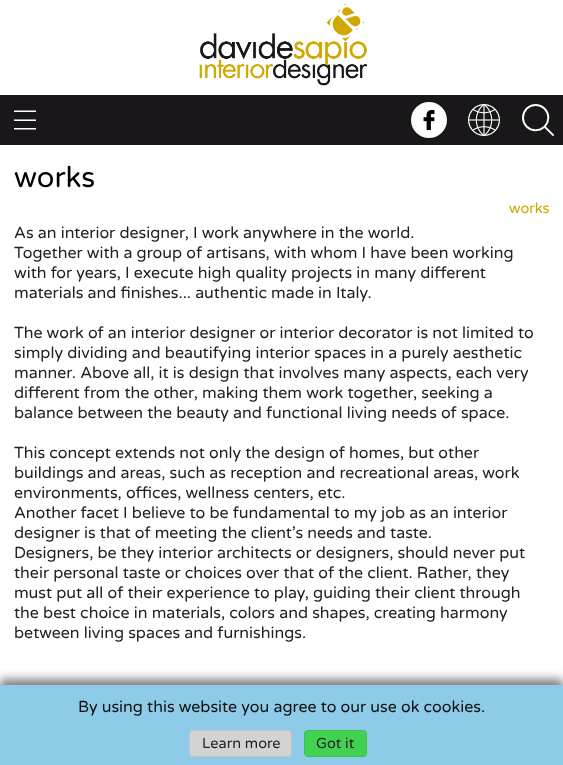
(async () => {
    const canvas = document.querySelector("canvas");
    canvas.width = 563;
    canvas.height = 765;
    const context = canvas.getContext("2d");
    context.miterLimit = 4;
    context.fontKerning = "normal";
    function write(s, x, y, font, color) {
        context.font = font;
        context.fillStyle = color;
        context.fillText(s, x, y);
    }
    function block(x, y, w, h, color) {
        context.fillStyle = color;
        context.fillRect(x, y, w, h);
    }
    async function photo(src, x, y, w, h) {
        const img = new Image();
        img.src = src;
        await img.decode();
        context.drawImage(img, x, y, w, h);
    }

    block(0, 0, 563, 765, "rgb(255, 255, 255)");
    await photo("media/1.png", 199, 3, 169, 83);
    block(0, 95, 563, 50, "rgb(26, 23, 27)");
    await photo("media/2.png", 14, 110, 22, 20);
    context.fillStyle = "rgb(255, 255, 255)";
    context.beginPath();
    context.arc(429, 120, 17, 0, Math.PI * 2);
    context.fill();
    context.strokeStyle = "rgb(250, 250, 250)";
    context.lineWidth = 2;
    context.stroke();
    await photo("media/3.png", 423, 110, 12, 20);
    await photo("media/4.png", 468, 104, 32, 32);
    await photo("media/5.png", 522, 104, 32, 32);
    write("works", 14, 187, "29px Varela Round", "rgb(0, 0, 0)");
    write("works", 509, 213, "14.5px Varela Round", "rgb(209, 168, 0)");
    write("As an interior designer, I work anywhere in the world.", 14, 238, "16px Varela Round", "rgb(34, 34, 34)");
    write("Together with a group of artisans, with whom I have been working", 14, 258, "16px Varela Round", "rgb(34, 34, 34)");
    write("with for years, I execute high quality projects in many different", 14, 278, "16px Varela Round", "rgb(34, 34, 34)");
    write("materials and finishes... authentic made in Italy.", 14, 298, "16px Varela Round", "rgb(34, 34, 34)");
    write("The work of an interior designer or interior decorator is not limited to", 14, 338, "16px Varela Round", "rgb(34, 34, 34)");
    write("simply dividing and beautifying interior spaces in a purely aesthetic", 14, 358, "16px Varela Round", "rgb(34, 34, 34)");
    write("manner. Above all, it is design that involves many aspects, each very", 14, 378, "16px Varela Round", "rgb(34, 34, 34)");
    write("different from the other, making them work together, seeking a", 14, 398, "16px Varela Round", "rgb(34, 34, 34)");
    write("balance between the beauty and functional living needs of space.", 14, 418, "16px Varela Round", "rgb(34, 34, 34)");
    write("This concept extends not only the design of homes, but other", 14, 458, "16px Varela Round", "rgb(34, 34, 34)");
    write("buildings and areas, such as reception and recreational areas, work", 14, 478, "16px Varela Round", "rgb(34, 34, 34)");
    write("environments, offices, wellness centers, etc.", 14, 498, "16px Varela Round", "rgb(34, 34, 34)");
    write("Another facet I believe to be fundamental to my job as an interior", 14, 518, "16px Varela Round", "rgb(34, 34, 34)");
    write("designer is that of meeting the client’s needs and taste.", 14, 538, "16px Varela Round", "rgb(34, 34, 34)");
    write("Designers, be they interior architects or designers, should never put", 14, 558, "16px Varela Round", "rgb(34, 34, 34)");
    write("their personal taste or choices over that of the client. Rather, they", 14, 578, "16px Varela Round", "rgb(34, 34, 34)");
    write("must put all of their experience to play, guiding their client through", 14, 598, "16px Varela Round", "rgb(34, 34, 34)");
    write("the best choice in materials, colors and shapes, creating harmony", 14, 618, "16px Varela Round", "rgb(34, 34, 34)");
    write("between living spaces and furnishings.", 14, 638, "16px Varela Round", "rgb(34, 34, 34)");
    context.fillStyle = "rgba(0, 0, 0, 0.5)";
    context.filter = "blur(5px)";
    context.beginPath();
    context.rect(0, 679, 563, 80);
    context.fill();
    context.filter = "none";
    block(0, 685, 563, 80, "rgb(141, 203, 232)");
    write("By using this website you agree to our use ok cookies.", 78, 712, "16px Varela Round", "rgb(17, 17, 17)");
    context.fillStyle = "rgb(211, 211, 211)";
    context.beginPath();
    context.roundRect(189.5, 730.5, 102, 26, 3.5);
    context.fill();
    context.strokeStyle = "rgb(196, 196, 196)";
    context.lineWidth = 1;
    context.stroke();
    write("Learn more", 202, 748, "14.5px Varela Round", "rgb(34, 34, 34)");
    context.fillStyle = "rgb(66, 209, 81)";
    context.beginPath();
    context.roundRect(304.5, 730.5, 62, 26, 3.5);
    context.fill();
    context.strokeStyle = "rgb(62, 193, 75)";
    context.stroke();
    write("Got it", 316, 748, "14.5px Varela Round", "rgb(34, 34, 34)");
})();
